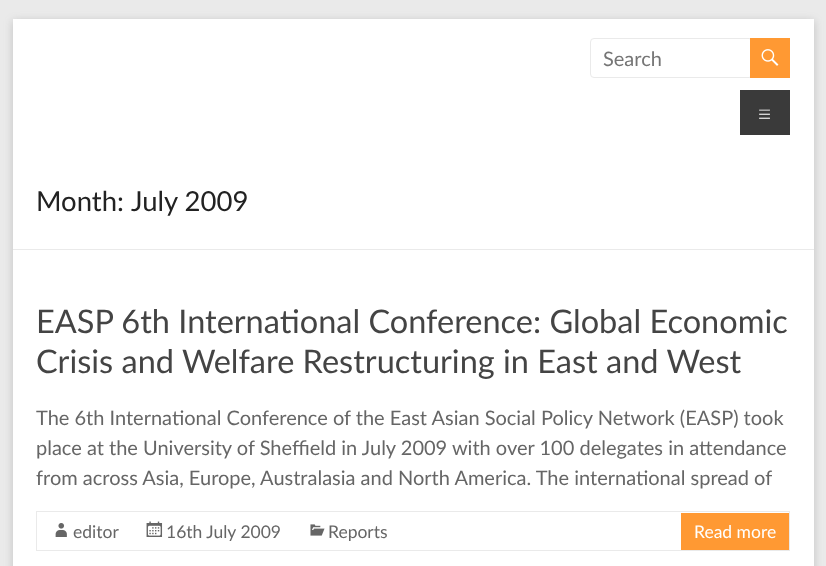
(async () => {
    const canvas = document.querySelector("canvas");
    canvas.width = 826;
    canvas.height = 566;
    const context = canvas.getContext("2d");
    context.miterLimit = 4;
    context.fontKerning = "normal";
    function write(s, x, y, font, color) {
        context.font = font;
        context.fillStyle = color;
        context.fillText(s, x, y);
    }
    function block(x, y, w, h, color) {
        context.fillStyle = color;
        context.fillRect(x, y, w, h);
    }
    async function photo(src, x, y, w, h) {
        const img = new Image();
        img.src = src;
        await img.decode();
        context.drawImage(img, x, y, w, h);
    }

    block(0, 0, 826, 566, "rgb(234, 234, 234)");
    context.fillStyle = "rgba(100, 100, 100, 0.3)";
    context.filter = "blur(4px)";
    context.beginPath();
    context.rect(13, 21, 801, 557);
    context.fill();
    context.filter = "none";
    block(13, 19, 801, 547, "rgb(255, 255, 255)");
    context.beginPath();
    context.roundRect(590.5, 38.5, 162, 39, 3.5);
    context.strokeStyle = "rgb(234, 234, 234)";
    context.stroke();
    write("Search", 603, 66, "20px Lato", "rgb(117, 117, 117)");
    block(750, 38, 40, 40, "rgb(255, 153, 51)");
    await photo("media/1.png", 761, 49, 18, 17);
    block(740, 90, 50, 45, "rgb(58, 58, 58)");
    write("≡", 757, 123, "300 26px Lato", "rgb(255, 255, 255)");
    block(13, 249, 801, 1, "rgb(234, 234, 234)");
    write("Month:", 36, 211, "27.5px Lato", "rgb(34, 34, 34)");
    write("July 2009", 131, 211, "27.5px Lato", "rgb(34, 34, 34)");
    write("EASP 6th International Conference: Global Economic", 36, 333, "32.5px Lato", "rgb(68, 68, 68)");
    write("Crisis and Welfare Restructuring in East and West", 36, 373, "32.5px Lato", "rgb(68, 68, 68)");
    write("The 6th International Conference of the East Asian Social Policy Network (EASP) took", 36, 425, "20px Lato", "rgb(102, 102, 102)");
    write("place at the University of Sheffield in July 2009 with over 100 delegates in attendance", 36, 455, "20px Lato", "rgb(102, 102, 102)");
    write("from across Asia, Europe, Australasia and North America. The international spread of", 36, 485, "20px Lato", "rgb(102, 102, 102)");
    context.strokeRect(36.5, 511.5, 753, 39);
    await photo("media/2.png", 55, 523, 12, 14);
    write("editor", 73, 538, "17.5px Lato", "rgb(102, 102, 102)");
    await photo("media/3.png", 146, 521, 17, 16);
    write("16th July 2009", 166, 538, "17.5px Lato", "rgb(102, 102, 102)");
    await photo("media/4.png", 310, 524, 15, 12);
    write("Reports", 328, 538, "17.5px Lato", "rgb(102, 102, 102)");
    block(681, 513, 108, 37, "rgb(255, 153, 51)");
    write("Read more", 694, 538, "17.5px Lato", "rgb(255, 255, 255)");
})();
